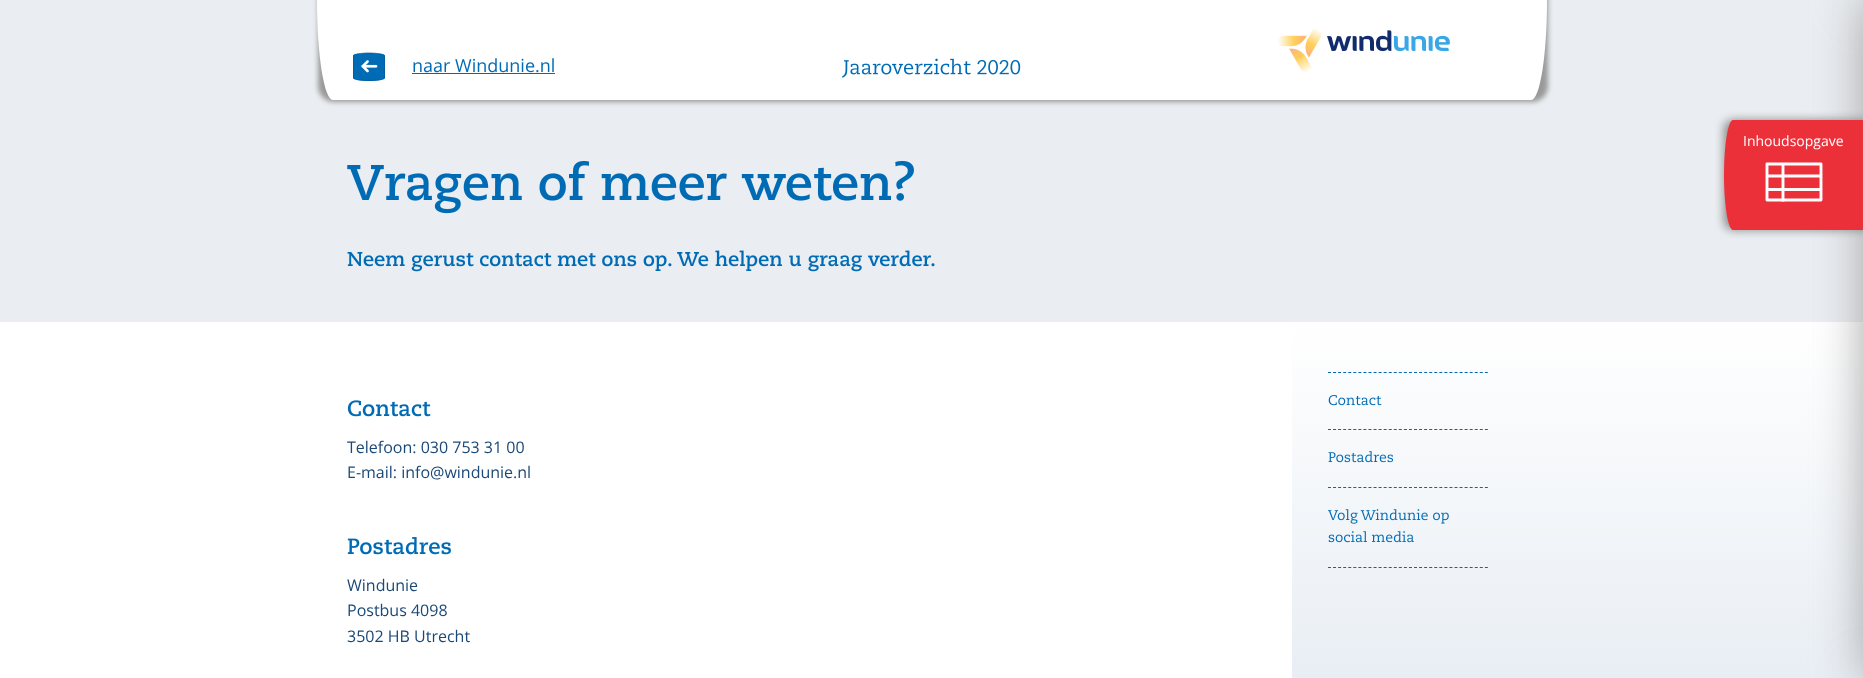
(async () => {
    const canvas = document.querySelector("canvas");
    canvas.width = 1863;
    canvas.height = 678;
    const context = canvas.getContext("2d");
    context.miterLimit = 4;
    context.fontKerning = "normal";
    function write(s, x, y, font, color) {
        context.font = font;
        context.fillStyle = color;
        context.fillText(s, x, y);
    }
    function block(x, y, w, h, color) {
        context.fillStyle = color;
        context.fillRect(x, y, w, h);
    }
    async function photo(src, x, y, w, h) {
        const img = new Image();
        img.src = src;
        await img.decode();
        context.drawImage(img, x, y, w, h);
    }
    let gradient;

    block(0, 0, 1863, 678, "rgb(234, 237, 241)");
    context.fillStyle = "rgb(153, 153, 153)";
    context.filter = "blur(2.5px)";
    context.beginPath();
    context.roundRect(318, -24, 1230, 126, 16);
    context.fill();
    context.filter = "none";
    context.fillStyle = "rgb(255, 255, 255)";
    context.beginPath();
    context.moveTo(333, -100);
    context.lineTo(1531, -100);
    context.bezierCurveTo(1540, -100, 1547, -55, 1547, 0);
    context.bezierCurveTo(1547, 55, 1540, 100, 1531, 100);
    context.lineTo(333, 100);
    context.bezierCurveTo(324, 100, 317, 55, 317, 0);
    context.bezierCurveTo(317, -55, 324, -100, 333, -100);
    context.closePath();
    context.fill();
    context.fillStyle = "rgb(0, 107, 181)";
    context.beginPath();
    context.moveTo(369, 53);
    context.bezierCurveTo(377.5, 53, 385, 54, 385, 55.5);
    context.lineTo(385, 78);
    context.bezierCurveTo(385, 79.5, 377.5, 81, 369, 81);
    context.bezierCurveTo(360.5, 81, 353, 79.5, 353, 78);
    context.lineTo(353, 55.5);
    context.bezierCurveTo(353, 54, 360.5, 53, 369, 53);
    context.closePath();
    context.fill();
    context.beginPath();
    context.moveTo(369, 53);
    context.bezierCurveTo(377.5, 53, 384.5, 54.5, 384.5, 55.5);
    context.lineTo(384.5, 78);
    context.bezierCurveTo(384.5, 79.5, 377.5, 80.5, 369, 80.5);
    context.bezierCurveTo(360.5, 80.5, 353.5, 79.5, 353.5, 78);
    context.lineTo(353.5, 55.5);
    context.bezierCurveTo(353.5, 54.5, 360.5, 53, 369, 53);
    context.closePath();
    context.strokeStyle = "rgb(0, 92, 156)";
    context.lineWidth = 0.7;
    context.stroke();
    await photo("media/1.png", 361, 60, 17, 13);
    write("naar Windunie.nl", 412, 72, "18px Open Sans", "rgb(0, 107, 181)");
    block(412, 73, 143, 1, "rgb(0, 107, 181)");
    await photo("media/2.png", 842, 58, 179, 20);
    await photo("media/3.png", 1278, 28, 172, 44);
    gradient = context.createLinearGradient(1578, 322, 1578, 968);
    gradient.addColorStop(0, "rgb(255, 255, 255)");
    gradient.addColorStop(1, "rgb(214, 224, 235)");
    context.fillStyle = gradient;
    context.fillRect(1292, 322, 571, 356);
    context.fillStyle = "rgb(153, 153, 153)";
    context.filter = "blur(25px)";
    context.beginPath();
    context.rect(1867, 0, 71, 678);
    context.fill();
    context.filter = "none";
    context.fillStyle = "rgb(136, 136, 136)";
    context.filter = "blur(5px)";
    context.beginPath();
    context.roundRect(1724, 120, 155, 110, 9);
    context.fill();
    context.filter = "none";
    context.fillStyle = "rgb(236, 48, 58)";
    context.beginPath();
    context.moveTo(1733, 120);
    context.lineTo(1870, 120);
    context.bezierCurveTo(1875, 120, 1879, 145, 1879, 175);
    context.bezierCurveTo(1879, 205, 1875, 230, 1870, 230);
    context.lineTo(1733, 230);
    context.bezierCurveTo(1728, 230, 1724, 205, 1724, 175);
    context.bezierCurveTo(1724, 145, 1728, 120, 1733, 120);
    context.closePath();
    context.fill();
    write("Inhoudsopgave", 1743, 146, "14px Open Sans", "rgb(255, 255, 255)");
    context.beginPath();
    context.moveTo(1767, 200);
    context.lineTo(1821, 200);
    context.lineTo(1821, 164);
    context.lineTo(1767, 164);
    context.closePath();
    context.moveTo(1768, 176);
    context.lineTo(1821.5, 176);
    context.strokeStyle = "rgb(255, 255, 255)";
    context.lineWidth = 2.9;
    context.lineJoin = "round";
    context.stroke();
    block(1768, 188, 54, 3, "rgba(255, 255, 255, 0.97)");
    context.beginPath();
    context.moveTo(1783, 164);
    context.lineTo(1783, 201.5);
    context.stroke();
    await photo("media/4.png", 347, 160, 567, 54);
    await photo("media/5.png", 347, 250, 588, 22);
    block(0, 322, 1292, 356, "rgb(255, 255, 255)");
    await photo("media/6.png", 347, 400, 84, 17);
    write("Telefoon: 030 753 31 00", 347, 453, "16px Open Sans", "rgb(26, 73, 120)");
    write("E-mail: info@windunie.nl", 347, 478, "16px Open Sans", "rgb(26, 73, 120)");
    await photo("media/7.png", 347, 537, 104, 18);
    write("Windunie", 347, 591, "16px Open Sans", "rgb(26, 73, 120)");
    write("Postbus 4098", 347, 616, "16px Open Sans", "rgb(26, 73, 120)");
    write("3502 HB Utrecht", 347, 642, "16px Open Sans", "rgb(26, 73, 120)");
    context.beginPath();
    context.moveTo(1328, 372.5);
    context.lineTo(1488, 372.5);
    context.strokeStyle = "rgb(0, 107, 181)";
    context.lineWidth = 1;
    context.lineJoin = "miter";
    context.setLineDash([3, 2.06]);
    context.stroke();
    context.beginPath();
    context.moveTo(1328, 429.5);
    context.lineTo(1488, 429.5);
    context.stroke();
    await photo("media/8.png", 1328, 395, 54, 11);
    context.beginPath();
    context.moveTo(1328, 487.5);
    context.lineTo(1488, 487.5);
    context.stroke();
    await photo("media/9.png", 1328, 451, 65, 12);
    context.beginPath();
    context.moveTo(1328, 567.5);
    context.lineTo(1488, 567.5);
    context.stroke();
    await photo("media/10.png", 1328, 509, 121, 15);
    await photo("media/11.png", 1328, 531, 86, 12);
})();
